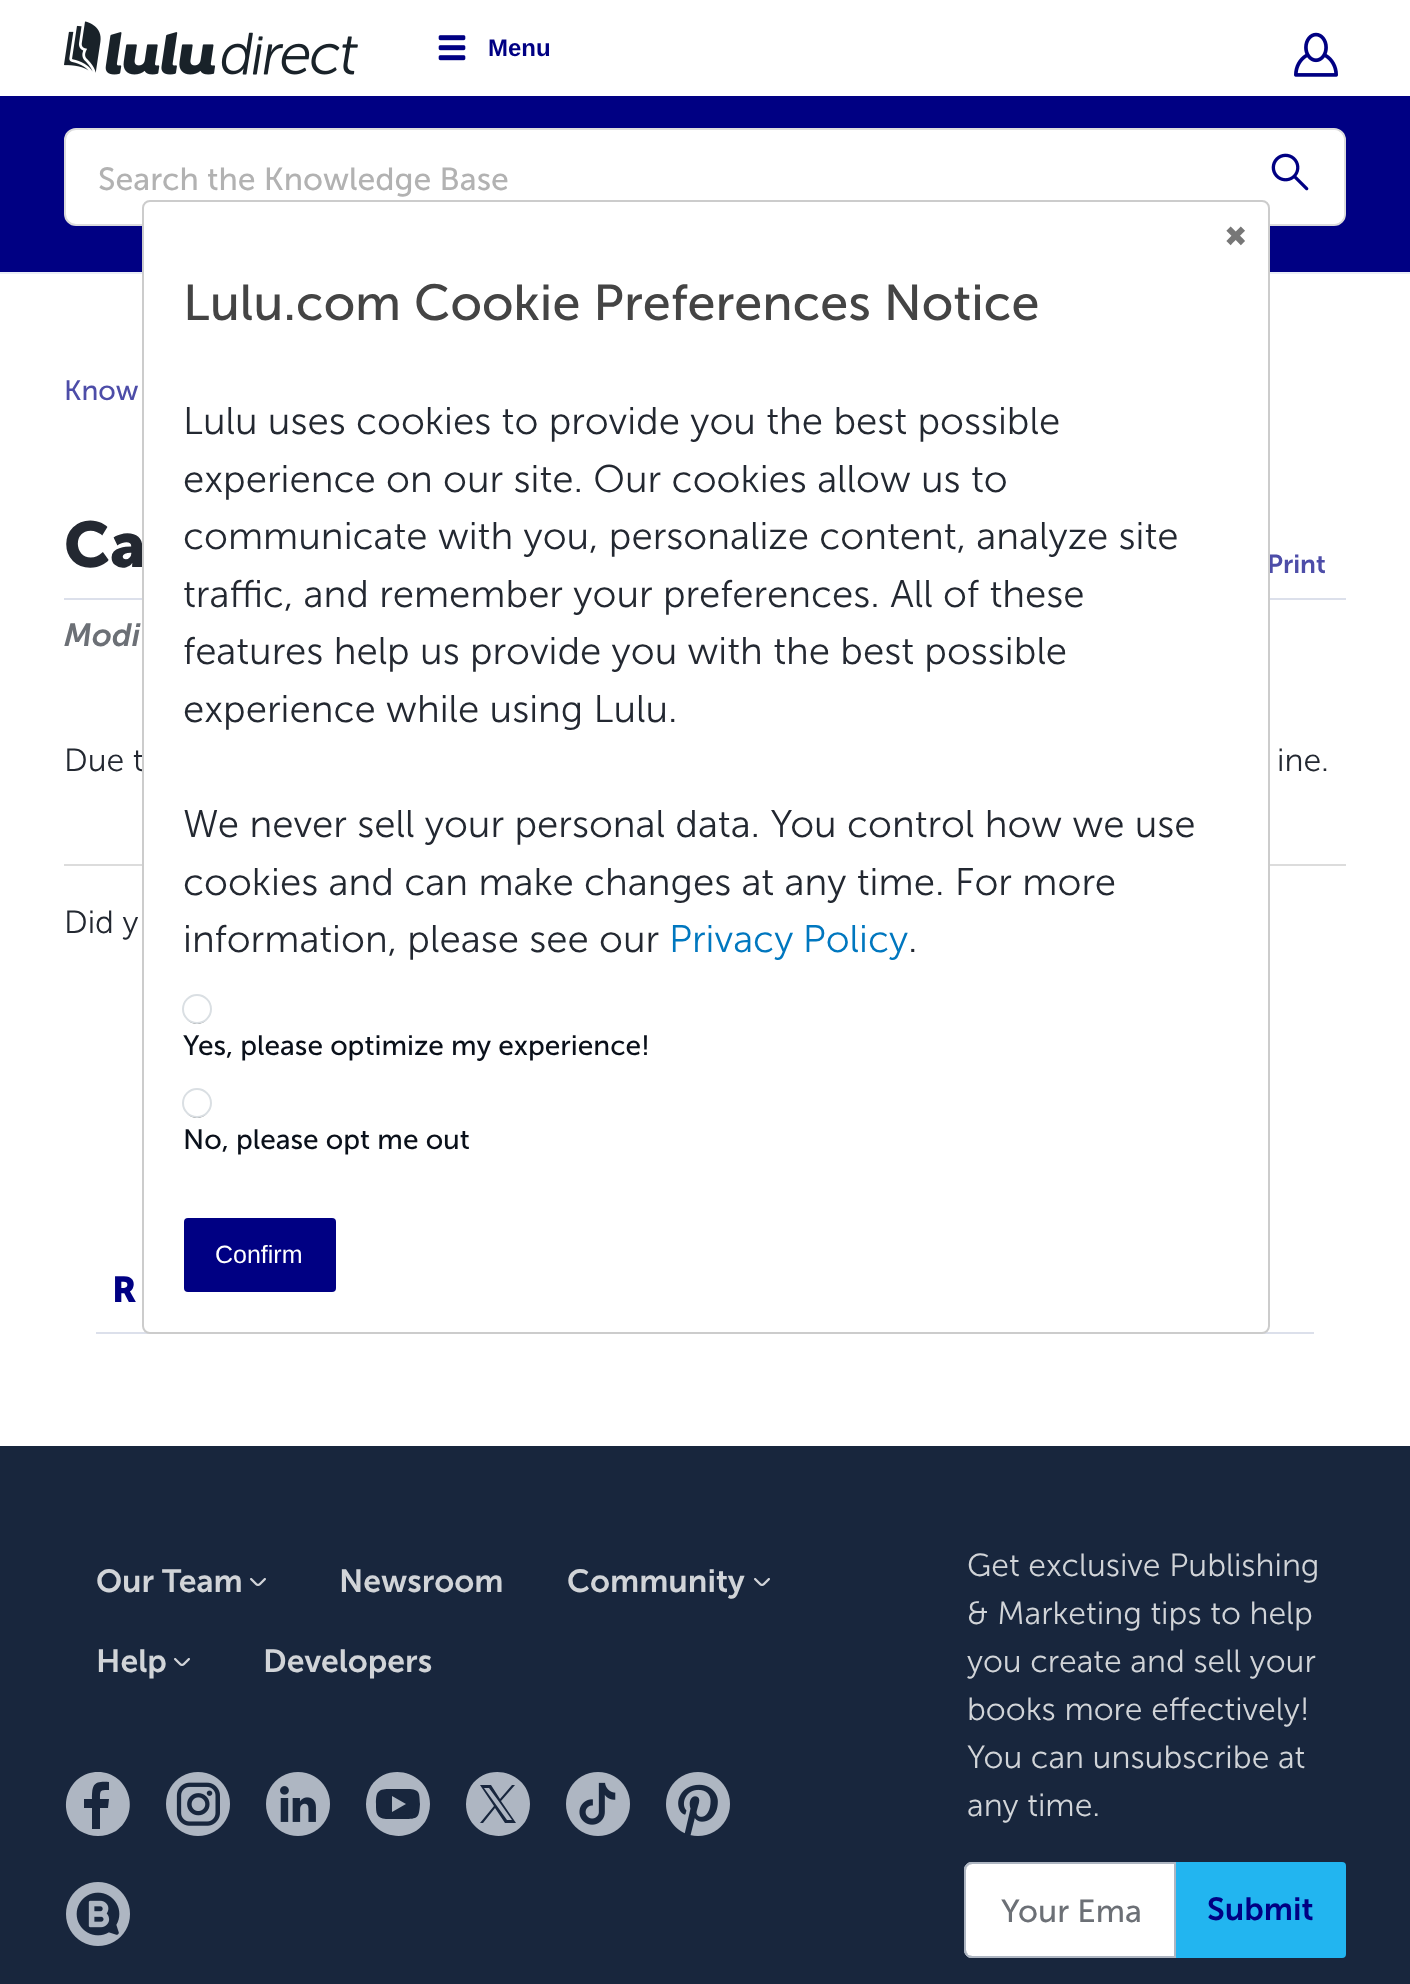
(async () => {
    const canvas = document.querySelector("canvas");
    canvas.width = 1410;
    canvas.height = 1984;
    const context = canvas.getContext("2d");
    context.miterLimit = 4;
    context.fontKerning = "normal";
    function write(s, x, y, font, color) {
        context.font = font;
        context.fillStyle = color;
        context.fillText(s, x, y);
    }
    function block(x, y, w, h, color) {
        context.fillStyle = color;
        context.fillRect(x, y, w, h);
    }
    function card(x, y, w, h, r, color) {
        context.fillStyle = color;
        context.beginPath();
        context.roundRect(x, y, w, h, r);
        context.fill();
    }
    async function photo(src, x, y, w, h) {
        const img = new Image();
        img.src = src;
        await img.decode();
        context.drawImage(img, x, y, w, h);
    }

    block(0, 0, 1410, 1984, "rgb(233, 237, 246)");
    block(0, 0, 1410, 96, "rgb(255, 255, 255)");
    await photo("media/1.png", 64, 21, 294, 54);
    await photo("media/2.png", 438, 35, 28, 26);
    write("Menu", 488, 56, "bold 24px Liberation Sans", "rgb(0, 0, 131)");
    await photo("media/3.png", 1294, 32, 44, 45);
    block(0, 96, 1410, 176, "rgb(0, 0, 131)");
    context.fillStyle = "rgb(255, 255, 255)";
    context.beginPath();
    context.roundRect(65, 129, 1280, 96, 11);
    context.fill();
    context.strokeStyle = "rgb(220, 220, 220)";
    context.lineWidth = 2;
    context.stroke();
    write("Search the Knowledge Base", 98, 190, "32px 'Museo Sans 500'", "rgb(178, 178, 178)");
    context.fillStyle = "rgb(255, 255, 255)";
    context.beginPath();
    context.roundRect(1238, 130, 106, 94, [0, 10, 10, 0]);
    context.fill();
    await photo("media/4.png", 1271, 153, 38, 38);
    block(0, 274, 1410, 1172, "rgb(255, 255, 255)");
    write("Know", 64, 400, "28px 'Museo Sans 500'", "rgb(77, 77, 168)");
    block(64, 598, 1282, 2, "rgb(220, 224, 235)");
    write("Ca", 64, 567, "bold 64px 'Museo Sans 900'", "rgb(35, 40, 49)");
    write("Print", 1267, 573, "600 26px 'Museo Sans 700'", "rgb(77, 77, 168)");
    write("Modi", 64, 646, "italic 600 32px 'Museo Sans 700'", "rgb(108, 112, 118)");
    write("Due t", 64, 771, "300 32px 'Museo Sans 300'", "rgb(35, 40, 49)");
    write("ine.", 1277, 771, "300 32px 'Museo Sans 300'", "rgb(35, 40, 49)");
    block(64, 864, 1282, 2, "rgb(220, 220, 220)");
    write("Did y", 64, 933, "300 32px 'Museo Sans 300'", "rgb(35, 40, 49)");
    block(96, 1332, 1218, 2, "rgb(220, 224, 235)");
    write("R", 112, 1302, "bold 36px 'Museo Sans 900'", "rgb(0, 0, 131)");
    block(0, 1446, 1410, 538, "rgb(24, 38, 61)");
    write("Our Team", 96, 1592, "600 32px 'Museo Sans 700'", "rgb(209, 212, 216)");
    await photo("media/5.png", 250, 1578, 16, 8);
    write("Newsroom", 339, 1592, "600 32px 'Museo Sans 700'", "rgb(209, 212, 216)");
    write("Community", 567, 1592, "600 32px 'Museo Sans 700'", "rgb(209, 212, 216)");
    await photo("media/5.png", 754, 1578, 16, 8);
    write("Help", 96, 1672, "600 32px 'Museo Sans 700'", "rgb(209, 212, 216)");
    await photo("media/5.png", 174, 1658, 16, 8);
    write("Developers", 263, 1672, "600 32px 'Museo Sans 700'", "rgb(209, 212, 216)");
    context.fillStyle = "rgb(174, 182, 194)";
    context.beginPath();
    context.moveTo(98, 1772);
    context.bezierCurveTo(67, 1772, 54, 1813, 80, 1831);
    context.bezierCurveTo(85, 1834, 92, 1836, 98, 1836);
    context.bezierCurveTo(104, 1836, 111, 1834, 116, 1831);
    context.bezierCurveTo(142, 1813, 129, 1772, 98, 1772);
    context.closePath();
    context.moveTo(109, 1790);
    context.bezierCurveTo(100, 1790, 100, 1790, 100, 1799);
    context.lineTo(109, 1799);
    context.lineTo(108, 1808);
    context.lineTo(100, 1808);
    context.lineTo(100, 1829);
    context.lineTo(92, 1829);
    context.lineTo(92, 1808);
    context.lineTo(84, 1808);
    context.lineTo(84, 1799);
    context.lineTo(92, 1799);
    context.bezierCurveTo(92, 1784, 94, 1781, 109, 1782);
    context.closePath();
    context.fill();
    await photo("media/6.png", 166, 1772, 64, 64);
    await photo("media/7.png", 266, 1772, 64, 64);
    context.beginPath();
    context.moveTo(392, 1796);
    context.lineTo(406, 1804);
    context.lineTo(392, 1812);
    context.closePath();
    context.moveTo(430, 1804);
    context.bezierCurveTo(430, 1810, 428, 1817, 425, 1822);
    context.bezierCurveTo(407, 1848, 366, 1835, 366, 1804);
    context.bezierCurveTo(366, 1798, 368, 1791, 371, 1786);
    context.bezierCurveTo(389, 1760, 430, 1773, 430, 1804);
    context.closePath();
    context.moveTo(420, 1804);
    context.bezierCurveTo(419, 1795, 421, 1790, 410, 1789);
    context.lineTo(391, 1789);
    context.bezierCurveTo(378, 1789, 376, 1791, 376, 1804);
    context.bezierCurveTo(376, 1813, 376, 1818, 386, 1819);
    context.lineTo(404, 1819);
    context.bezierCurveTo(418, 1819, 419, 1818, 420, 1804);
    context.closePath();
    context.fill();
    context.beginPath();
    context.moveTo(500, 1803);
    context.lineTo(512, 1820);
    context.lineTo(507, 1820);
    context.lineTo(484, 1788);
    context.lineTo(489, 1788);
    context.closePath();
    context.moveTo(530, 1804);
    context.bezierCurveTo(530, 1810, 528, 1817, 525, 1822);
    context.bezierCurveTo(507, 1848, 466, 1835, 466, 1804);
    context.bezierCurveTo(466, 1798, 468, 1791, 471, 1786);
    context.bezierCurveTo(489, 1760, 530, 1773, 530, 1804);
    context.closePath();
    context.moveTo(516, 1823);
    context.lineTo(501, 1801);
    context.lineTo(515, 1785);
    context.lineTo(512, 1785);
    context.lineTo(500, 1799);
    context.lineTo(491, 1785);
    context.lineTo(480, 1785);
    context.lineTo(494, 1806);
    context.lineTo(480, 1823);
    context.lineTo(483, 1823);
    context.lineTo(495, 1808);
    context.lineTo(505, 1823);
    context.closePath();
    context.fill();
    await photo("media/8.png", 566, 1772, 64, 64);
    await photo("media/9.png", 666, 1772, 64, 64);
    await photo("media/10.png", 66, 1882, 64, 64);
    write("Get exclusive Publishing", 967, 1576, "300 32px 'Museo Sans 300'", "rgb(209, 212, 216)");
    write("& Marketing tips to help", 967, 1624, "300 32px 'Museo Sans 300'", "rgb(209, 212, 216)");
    write("you create and sell your", 967, 1672, "300 32px 'Museo Sans 300'", "rgb(209, 212, 216)");
    write("books more effectively!", 967, 1720, "300 32px 'Museo Sans 300'", "rgb(209, 212, 216)");
    write("You can unsubscribe at", 967, 1768, "300 32px 'Museo Sans 300'", "rgb(209, 212, 216)");
    write("any time.", 967, 1816, "300 32px 'Museo Sans 300'", "rgb(209, 212, 216)");
    context.beginPath();
    context.roundRect(965, 1863, 210, 94, [7, 0, 0, 7]);
    context.strokeStyle = "rgb(174, 182, 194)";
    context.stroke();
    context.beginPath();
    context.roundRect(965, 1863, 210, 94, [7, 0, 0, 7]);
    context.stroke();
    context.beginPath();
    context.roundRect(965, 1863, 210, 94, [7, 0, 0, 7]);
    context.stroke();
    context.fillStyle = "rgb(255, 255, 255)";
    context.beginPath();
    context.roundRect(966, 1864, 208, 92, [6, 0, 0, 6]);
    context.fill();
    write("Your Ema", 1001, 1922, "32px 'Museo Sans 500'", "rgb(108, 112, 118)");
    context.fillStyle = "rgb(34, 181, 240)";
    context.beginPath();
    context.roundRect(1176, 1862, 170, 96, [0, 4, 4, 0]);
    context.fill();
    write("Submit", 1207, 1920, "600 32px 'Museo Sans 700'", "rgb(0, 0, 131)");
    context.fillStyle = "rgb(255, 255, 255)";
    context.beginPath();
    context.roundRect(143, 201, 1126, 1132, 7);
    context.fill();
    context.strokeStyle = "rgb(204, 204, 204)";
    context.stroke();
    write("✖", 1224, 246, "28px DejaVu Sans", "rgb(119, 119, 119)");
    write("Lulu.com Cookie Preferences Notice", 183, 320, "50.4px 'Museo Sans 500'", "rgb(68, 68, 68)");
    write("Lulu uses cookies to provide you the best possible", 183, 434, "300 38.4px 'Museo Sans 300'", "rgb(35, 40, 49)");
    write("experience on our site. Our cookies allow us to", 183, 492, "300 38.4px 'Museo Sans 300'", "rgb(35, 40, 49)");
    write("communicate with you, personalize content, analyze site", 183, 549, "300 38.4px 'Museo Sans 300'", "rgb(35, 40, 49)");
    write("traffic, and remember your preferences. All of these", 183, 607, "300 38.4px 'Museo Sans 300'", "rgb(35, 40, 49)");
    write("features help us provide you with the best possible", 183, 664, "300 38.4px 'Museo Sans 300'", "rgb(35, 40, 49)");
    write("experience while using Lulu.", 183, 722, "300 38.4px 'Museo Sans 300'", "rgb(35, 40, 49)");
    write("We never sell your personal data. You control how we use", 183, 837, "300 38.4px 'Museo Sans 300'", "rgb(35, 40, 49)");
    write("cookies and can make changes at any time. For more", 183, 895, "300 38.4px 'Museo Sans 300'", "rgb(35, 40, 49)");
    write("information, please see our", 183, 952, "300 38.4px 'Museo Sans 300'", "rgb(35, 40, 49)");
    context.wordSpacing = "-1px";
    write("Privacy Policy", 669, 952, "300 38.4px 'Museo Sans 300'", "rgb(0, 119, 191)");
    context.wordSpacing = "0px";
    write(".", 908, 952, "300 38.4px 'Museo Sans 300'", "rgb(35, 40, 49)");
    context.beginPath();
    context.arc(197, 1011, 12, 0, Math.PI * 2);
    context.strokeStyle = "rgb(118, 118, 118)";
    context.stroke();
    context.fillStyle = "rgb(255, 255, 255)";
    context.beginPath();
    context.arc(197, 1009, 14, 0, Math.PI * 2);
    context.fill();
    context.strokeStyle = "rgb(218, 223, 227)";
    context.stroke();
    write("Yes, please optimize my experience!", 183, 1055, "28px 'Museo Sans 500'", "rgb(10, 16, 26)");
    context.beginPath();
    context.arc(197, 1105, 12, 0, Math.PI * 2);
    context.strokeStyle = "rgb(118, 118, 118)";
    context.stroke();
    context.fillStyle = "rgb(255, 255, 255)";
    context.beginPath();
    context.arc(197, 1103, 14, 0, Math.PI * 2);
    context.fill();
    context.strokeStyle = "rgb(218, 223, 227)";
    context.stroke();
    write("No, please opt me out", 183, 1149, "28px 'Museo Sans 500'", "rgb(10, 16, 26)");
    card(184, 1218, 152, 74, 4, "rgb(0, 0, 131)");
    write("Confirm", 215, 1263, "25px Liberation Sans", "rgb(255, 255, 255)");
})();
